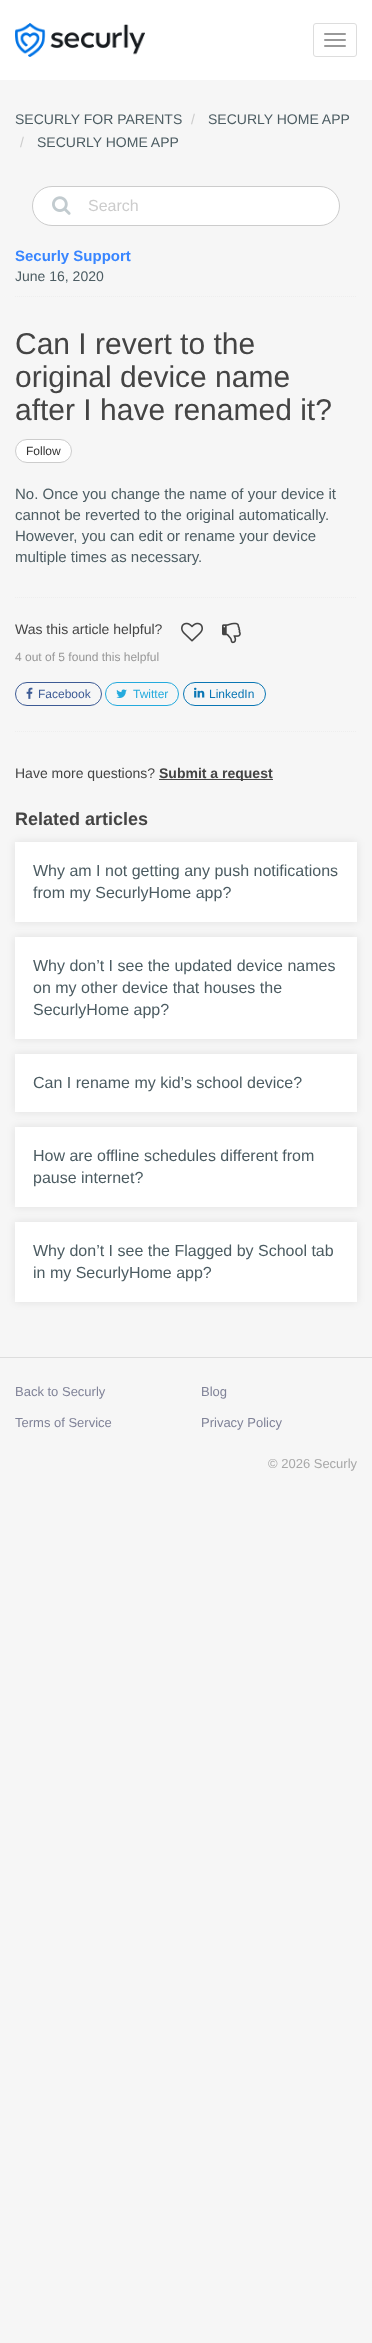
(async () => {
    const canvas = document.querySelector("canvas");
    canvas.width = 372;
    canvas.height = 2343;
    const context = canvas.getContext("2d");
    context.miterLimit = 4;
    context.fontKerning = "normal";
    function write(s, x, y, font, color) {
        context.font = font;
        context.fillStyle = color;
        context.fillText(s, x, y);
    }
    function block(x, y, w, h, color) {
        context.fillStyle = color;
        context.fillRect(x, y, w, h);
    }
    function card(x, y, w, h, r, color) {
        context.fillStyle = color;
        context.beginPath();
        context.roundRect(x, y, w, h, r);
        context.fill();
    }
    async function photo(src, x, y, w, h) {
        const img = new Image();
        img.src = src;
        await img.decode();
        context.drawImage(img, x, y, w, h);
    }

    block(0, 0, 372, 2343, "rgb(246, 246, 246)");
    block(0, 0, 372, 80, "rgb(255, 255, 255)");
    await photo("media/1.png", 15, 23, 130, 34);
    context.beginPath();
    context.roundRect(313.5, 23.5, 43, 33, 2.5);
    context.strokeStyle = "rgb(221, 221, 221)";
    context.stroke();
    card(324, 33, 22, 2, 1, "rgb(153, 153, 153)");
    card(324, 39, 22, 2, 1, "rgb(153, 153, 153)");
    card(324, 45, 22, 2, 1, "rgb(153, 153, 153)");
    write("SECURLY FOR PARENTS", 15, 124, "14px Liberation Sans", "rgb(76, 92, 98)");
    write("/", 191, 124, "14px Liberation Sans", "rgb(204, 204, 204)");
    write("SECURLY HOME APP", 208, 124, "14px Liberation Sans", "rgb(76, 92, 98)");
    write("/", 20, 147, "14px Liberation Sans", "rgb(204, 204, 204)");
    write("SECURLY HOME APP", 37, 147, "14px Liberation Sans", "rgb(76, 92, 98)");
    context.fillStyle = "rgb(255, 255, 255)";
    context.beginPath();
    context.roundRect(32.5, 186.5, 307, 39, 19.5);
    context.fill();
    context.strokeStyle = "rgb(204, 204, 204)";
    context.stroke();
    await photo("media/2.png", 52, 196, 19, 19);
    write("Search", 88, 211, "16px Liberation Sans", "rgb(204, 204, 204)");
    context.beginPath();
    context.moveTo(15, 296.5);
    context.lineTo(357, 296.5);
    context.strokeStyle = "rgb(238, 238, 238)";
    context.setLineDash([1, 1]);
    context.stroke();
    write("Securly Support", 15, 261, "bold 15px Liberation Sans", "rgb(57, 134, 255)");
    write("June 16, 2020", 15, 281, "14px Liberation Sans", "rgb(76, 92, 98)");
    write("Can I revert to the", 15, 354, "30px Liberation Sans", "rgb(68, 68, 68)");
    write("original device name", 15, 387, "30px Liberation Sans", "rgb(68, 68, 68)");
    write("after I have renamed it?", 15, 420, "30px Liberation Sans", "rgb(68, 68, 68)");
    context.fillStyle = "rgb(255, 255, 255)";
    context.beginPath();
    context.roundRect(15.5, 439.5, 56, 23, 11.5);
    context.fill();
    context.strokeStyle = "rgb(204, 204, 204)";
    context.setLineDash([]);
    context.stroke();
    write("Follow", 26, 455, "12px Liberation Sans", "rgb(51, 51, 51)");
    write("No. Once you change the name of your device it", 15, 499, "15px Liberation Sans", "rgb(76, 92, 98)");
    write("cannot be reverted to the original automatically.", 15, 520, "15px Liberation Sans", "rgb(76, 92, 98)");
    write("However, you can edit or rename your device", 15, 541, "15px Liberation Sans", "rgb(76, 92, 98)");
    write("multiple times as necessary.", 15, 562, "15px Liberation Sans", "rgb(76, 92, 98)");
    context.beginPath();
    context.moveTo(15, 597.5);
    context.lineTo(357, 597.5);
    context.strokeStyle = "rgb(238, 238, 238)";
    context.setLineDash([1, 1]);
    context.stroke();
    context.beginPath();
    context.moveTo(15, 731.5);
    context.lineTo(357, 731.5);
    context.stroke();
    write("Was this article helpful?", 15, 634, "14px Liberation Sans", "rgb(68, 68, 68)");
    await photo("media/3.png", 181, 622, 22, 20);
    await photo("media/4.png", 222, 622, 19, 22);
    write("4 out of 5 found this helpful", 15, 661, "12px Liberation Sans", "rgb(151, 151, 151)");
    context.beginPath();
    context.roundRect(15.5, 682.5, 86, 23, 11.5);
    context.strokeStyle = "rgb(61, 91, 149)";
    context.setLineDash([]);
    context.stroke();
    await photo("media/5.png", 26, 687, 7, 12);
    write("Facebook", 38, 698, "12px Liberation Sans", "rgb(61, 91, 149)");
    context.beginPath();
    context.roundRect(105.5, 682.5, 73, 23, 11.5);
    context.strokeStyle = "rgb(36, 170, 221)";
    context.stroke();
    await photo("media/6.png", 116, 689, 11, 9);
    write("Twitter", 133, 698, "12px Liberation Sans", "rgb(36, 170, 221)");
    context.beginPath();
    context.roundRect(183.5, 682.5, 82, 23, 11.5);
    context.strokeStyle = "rgb(9, 118, 180)";
    context.stroke();
    await photo("media/7.png", 194, 687, 11, 11);
    write("LinkedIn", 209, 698, "12px Liberation Sans", "rgb(9, 118, 180)");
    write("Have more questions?", 15, 778, "14px Liberation Sans", "rgb(68, 68, 68)");
    block(159, 779, 114, 1, "rgb(68, 68, 68)");
    write("Submit a request", 159, 778, "bold 14px Liberation Sans", "rgb(68, 68, 68)");
    write("Related articles", 15, 825, "bold 18px Liberation Sans", "rgb(68, 68, 68)");
    context.fillStyle = "rgba(0, 0, 0, 0.09)";
    context.filter = "blur(4px)";
    context.beginPath();
    context.rect(15, 842, 342, 80);
    context.fill();
    context.filter = "none";
    block(15, 842, 342, 80, "rgb(255, 255, 255)");
    write("Why am I not getting any push notifications", 33, 876, "16px Liberation Sans", "rgb(76, 92, 98)");
    write("from my SecurlyHome app?", 33, 898, "16px Liberation Sans", "rgb(76, 92, 98)");
    context.fillStyle = "rgba(0, 0, 0, 0.09)";
    context.filter = "blur(4px)";
    context.beginPath();
    context.rect(15, 937, 342, 102);
    context.fill();
    context.filter = "none";
    block(15, 937, 342, 102, "rgb(255, 255, 255)");
    write("Why don’t I see the updated device names", 33, 971, "16px Liberation Sans", "rgb(76, 92, 98)");
    write("on my other device that houses the", 33, 993, "16px Liberation Sans", "rgb(76, 92, 98)");
    write("SecurlyHome app?", 33, 1015, "16px Liberation Sans", "rgb(76, 92, 98)");
    context.fillStyle = "rgba(0, 0, 0, 0.09)";
    context.filter = "blur(4px)";
    context.beginPath();
    context.rect(15, 1054, 342, 58);
    context.fill();
    context.filter = "none";
    block(15, 1054, 342, 58, "rgb(255, 255, 255)");
    write("Can I rename my kid’s school device?", 33, 1088, "16px Liberation Sans", "rgb(76, 92, 98)");
    context.fillStyle = "rgba(0, 0, 0, 0.09)";
    context.filter = "blur(4px)";
    context.beginPath();
    context.rect(15, 1127, 342, 80);
    context.fill();
    context.filter = "none";
    block(15, 1127, 342, 80, "rgb(255, 255, 255)");
    write("How are offline schedules different from", 33, 1161, "16px Liberation Sans", "rgb(76, 92, 98)");
    write("pause internet?", 33, 1183, "16px Liberation Sans", "rgb(76, 92, 98)");
    context.fillStyle = "rgba(0, 0, 0, 0.09)";
    context.filter = "blur(4px)";
    context.beginPath();
    context.rect(15, 1222, 342, 80);
    context.fill();
    context.filter = "none";
    block(15, 1222, 342, 80, "rgb(255, 255, 255)");
    write("Why don’t I see the Flagged by School tab", 33, 1256, "16px Liberation Sans", "rgb(76, 92, 98)");
    write("in my SecurlyHome app?", 33, 1278, "16px Liberation Sans", "rgb(76, 92, 98)");
    block(0, 1357, 372, 1, "rgb(221, 221, 221)");
    write("Back to Securly", 15, 1396, "13px Liberation Sans", "rgb(128, 131, 152)");
    write("Blog", 201, 1396, "13px Liberation Sans", "rgb(128, 131, 152)");
    write("Terms of Service", 15, 1427, "13px Liberation Sans", "rgb(128, 131, 152)");
    write("Privacy Policy", 201, 1427, "13px Liberation Sans", "rgb(128, 131, 152)");
    write("© 2026 Securly", 268, 1468, "13px Liberation Sans", "rgb(168, 168, 168)");
})();
